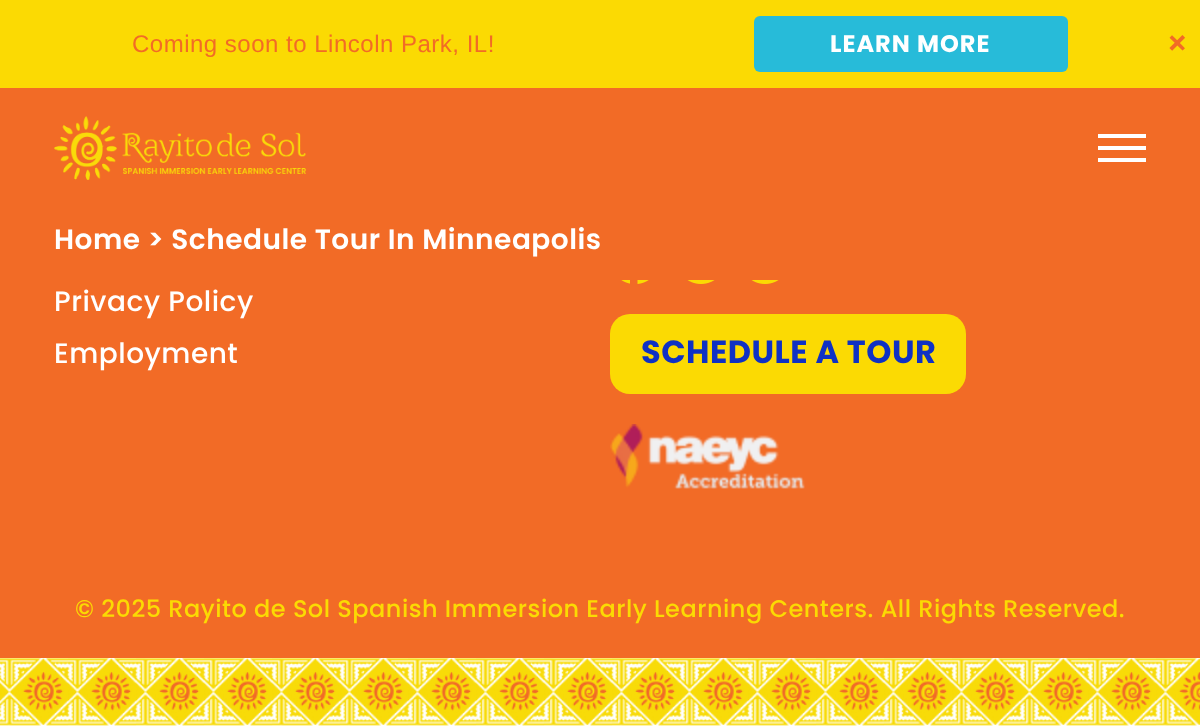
(async () => {
    const canvas = document.querySelector("canvas");
    canvas.width = 1200;
    canvas.height = 726;
    const context = canvas.getContext("2d");
    context.miterLimit = 4;
    context.fontKerning = "normal";
    function write(s, x, y, font, color) {
        context.font = font;
        context.fillStyle = color;
        context.fillText(s, x, y);
    }
    function block(x, y, w, h, color) {
        context.fillStyle = color;
        context.fillRect(x, y, w, h);
    }
    function card(x, y, w, h, r, color) {
        context.fillStyle = color;
        context.beginPath();
        context.roundRect(x, y, w, h, r);
        context.fill();
    }
    async function photo(src, x, y, w, h) {
        const img = new Image();
        img.src = src;
        await img.decode();
        context.drawImage(img, x, y, w, h);
    }

    block(0, 0, 1200, 726, "rgb(242, 107, 38)");
    block(0, 0, 1200, 88, "rgb(251, 218, 3)");
    context.letterSpacing = "0.5px";
    write("Coming soon to Lincoln Park, IL!", 132, 52, "24px Liberation Sans", "rgb(242, 107, 38)");
    card(754, 16, 314, 56, 6, "rgb(39, 187, 217)");
    context.letterSpacing = "1px";
    write("LEARN MORE", 830, 52, "bold 24px Poppins", "rgb(255, 255, 255)");
    context.letterSpacing = "0.5px";
    context.font = "500 36px Poppins";
    context.fillStyle = "rgb(242, 107, 38)";
    context.save();
    context.translate(1159, 43);
    context.rotate(45 * Math.PI / 180);
    context.fillText("+", 0, 0);
    context.restore();
    await photo("media/1.png", 54, 116, 252, 64);
    block(1098, 146, 48, 4, "rgb(255, 255, 255)");
    block(1098, 134, 48, 4, "rgb(255, 255, 255)");
    block(1098, 158, 48, 4, "rgb(255, 255, 255)");
    write("Home > Schedule Tour In Minneapolis", 54, 249, "600 28px Poppins", "rgb(255, 255, 255)");
    await photo("media/2.png", 0, 658, 1200, 68);
    write("Privacy Policy", 54, 311, "500 28px Poppins", "rgb(255, 255, 255)");
    write("Employment", 54, 363, "500 28px Poppins", "rgb(255, 255, 255)");
    await photo("media/3.png", 621, 280, 28, 4);
    await photo("media/4.png", 687, 280, 28, 4);
    await photo("media/4.png", 751, 280, 28, 4);
    card(610, 314, 356, 80, 20, "rgb(251, 218, 3)");
    write("SCHEDULE A TOUR", 641, 363, "bold 32px Poppins", "rgb(15, 49, 196)");
    await photo("media/5.png", 610, 424, 195, 65);
    write("© 2025 Rayito de Sol Spanish Immersion Early Learning Centers. All Rights Reserved.", 75, 617, "500 24px Poppins", "rgb(251, 218, 3)");
})();
